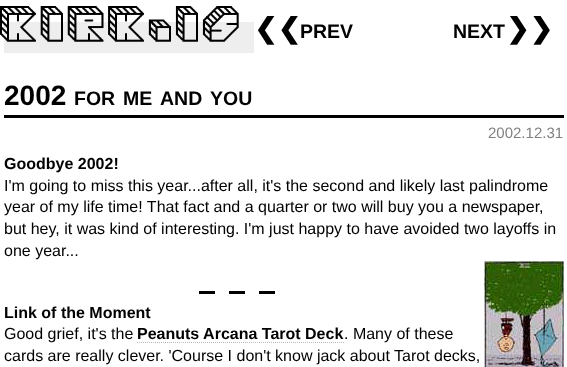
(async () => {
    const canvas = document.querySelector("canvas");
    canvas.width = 567;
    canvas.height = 367;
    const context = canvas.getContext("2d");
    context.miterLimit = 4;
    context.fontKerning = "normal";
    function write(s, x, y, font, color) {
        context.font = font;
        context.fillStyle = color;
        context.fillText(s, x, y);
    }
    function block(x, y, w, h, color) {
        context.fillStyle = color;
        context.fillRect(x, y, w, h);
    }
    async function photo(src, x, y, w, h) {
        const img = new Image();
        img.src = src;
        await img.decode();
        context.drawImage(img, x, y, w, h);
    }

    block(0, 0, 567, 367, "rgb(255, 255, 255)");
    block(4, 22, 250, 31, "rgb(238, 238, 238)");
    await photo("media/1.png", 0, 6, 239, 36);
    write("❮❮", 254, 38, "bold 28px DejaVu Sans", "rgb(0, 0, 0)");
    write("PREV", 300, 38, "bold 19.5px Liberation Sans", "rgb(0, 0, 0)");
    write("NEXT", 453, 38, "bold 19.5px Liberation Sans", "rgb(0, 0, 0)");
    write("❯❯", 506, 38, "bold 28px DejaVu Sans", "rgb(0, 0, 0)");
    block(4, 115, 560, 3, "rgb(0, 0, 0)");
    write("2002", 4, 105, "bold 28px Liberation Sans", "rgb(0, 0, 0)");
    write("FOR", 74, 105, "bold 19.5px Liberation Sans", "rgb(0, 0, 0)");
    write("ME", 123, 105, "bold 19.5px Liberation Sans", "rgb(0, 0, 0)");
    write("AND", 160, 105, "bold 19.5px Liberation Sans", "rgb(0, 0, 0)");
    write("YOU", 210, 105, "bold 19.5px Liberation Sans", "rgb(0, 0, 0)");
    write("2002.12.31", 488, 138, "15px Liberation Sans", "rgb(128, 128, 128)");
    write("Goodbye 2002!", 4, 169, "bold 16px Liberation Sans", "rgb(0, 0, 0)");
    write("I'm going to miss this year...after all, it's the second and likely last palindrome", 4, 191, "16px Liberation Sans", "rgb(0, 0, 0)");
    write("year of my life time! That fact and a quarter or two will buy you a newspaper,", 4, 212, "16px Liberation Sans", "rgb(0, 0, 0)");
    write("but hey, it was kind of interesting. I'm just happy to have avoided two layoffs in", 4, 234, "16px Liberation Sans", "rgb(0, 0, 0)");
    write("one year...", 4, 256, "16px Liberation Sans", "rgb(0, 0, 0)");
    block(199, 291, 16, 3, "rgb(0, 0, 0)");
    block(229, 291, 16, 3, "rgb(0, 0, 0)");
    block(259, 291, 16, 3, "rgb(0, 0, 0)");
    await photo("media/2.png", 484, 261, 80, 106);
    write("Link of the Moment", 4, 318, "bold 16px Liberation Sans", "rgb(0, 0, 0)");
    write("Good grief, it's the", 4, 339, "16px Liberation Sans", "rgb(0, 0, 0)");
    write("Peanuts Arcana Tarot Deck", 137, 339, "bold 16px Liberation Sans", "rgb(0, 0, 0)");
    context.beginPath();
    context.moveTo(137, 342.5);
    context.lineTo(344, 342.5);
    context.strokeStyle = "rgb(187, 187, 187)";
    context.setLineDash([1, 1]);
    context.stroke();
    write(". Many of these", 344, 339, "16px Liberation Sans", "rgb(0, 0, 0)");
    write("cards are really clever. 'Course I don't know jack about Tarot decks,", 4, 361, "16px Liberation Sans", "rgb(0, 0, 0)");
})();
